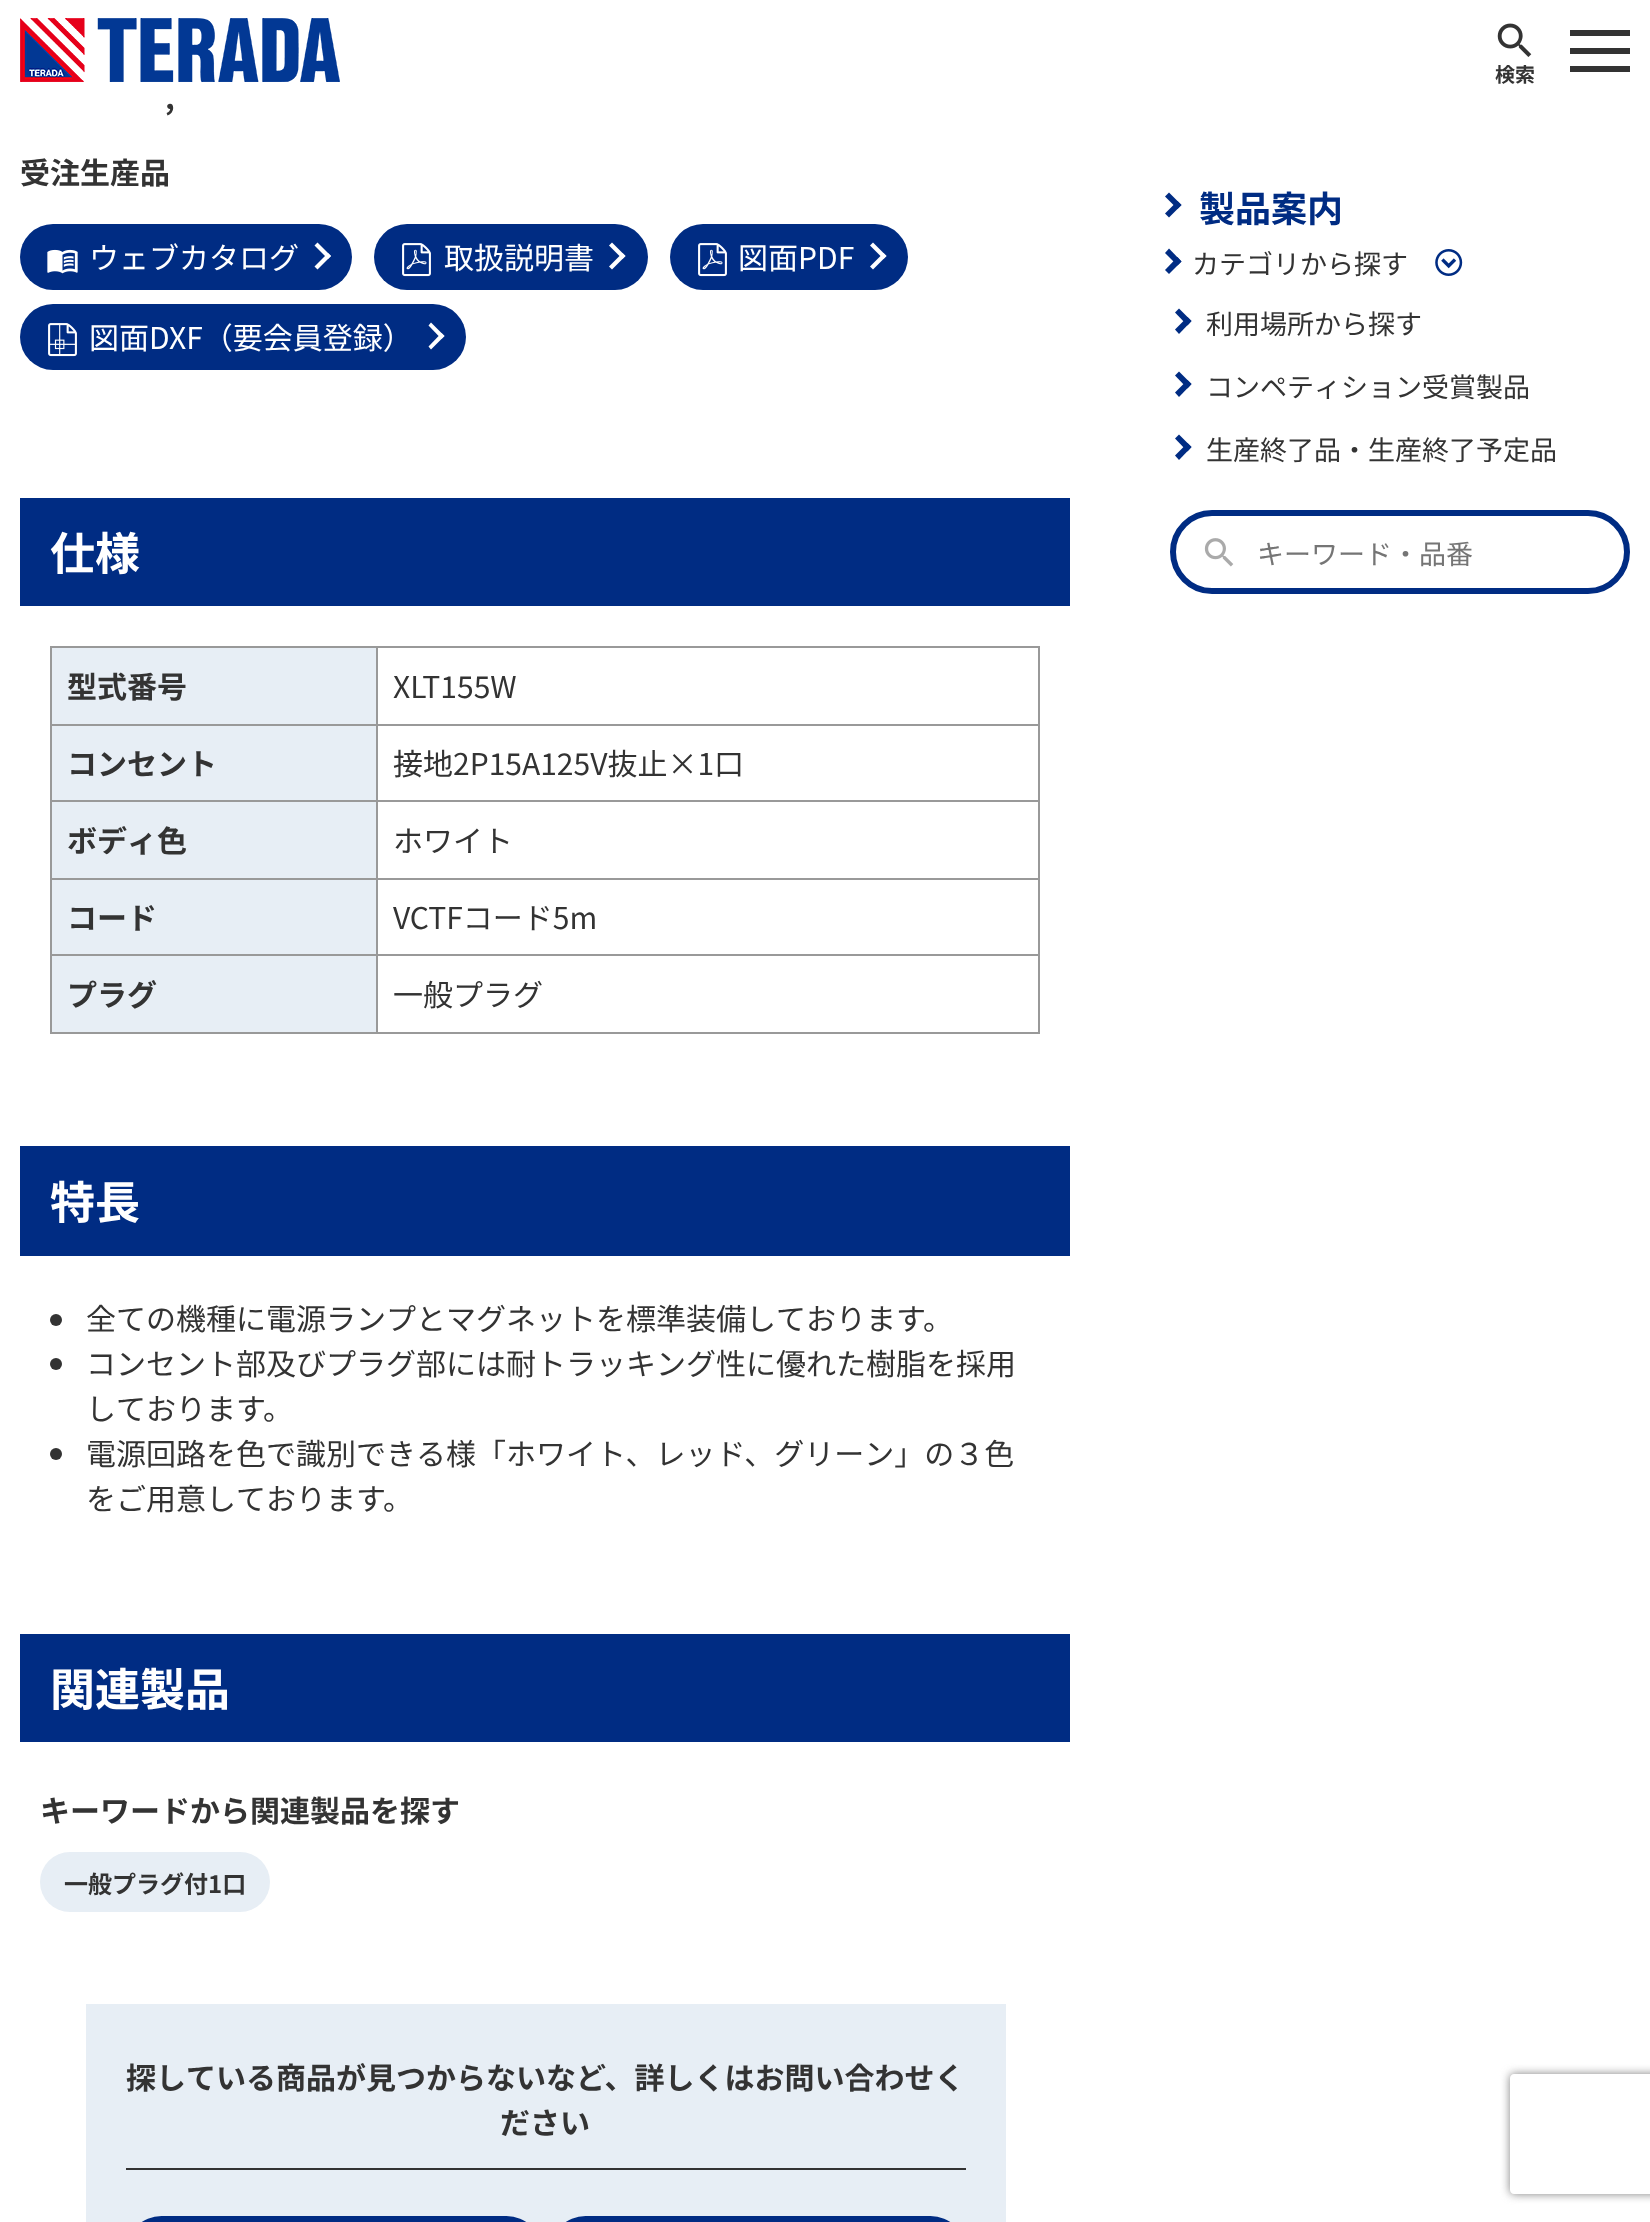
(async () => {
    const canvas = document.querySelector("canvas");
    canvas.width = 1650;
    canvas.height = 2222;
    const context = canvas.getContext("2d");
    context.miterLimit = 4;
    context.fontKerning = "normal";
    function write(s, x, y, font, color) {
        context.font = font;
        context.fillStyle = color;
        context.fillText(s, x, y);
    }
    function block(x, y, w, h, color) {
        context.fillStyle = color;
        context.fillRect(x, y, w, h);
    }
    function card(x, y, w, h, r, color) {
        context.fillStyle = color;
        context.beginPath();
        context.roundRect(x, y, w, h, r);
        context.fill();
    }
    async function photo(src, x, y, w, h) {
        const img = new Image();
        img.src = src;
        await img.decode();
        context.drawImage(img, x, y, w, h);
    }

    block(0, 0, 1650, 2222, "rgb(255, 255, 255)");
    await photo("media/1.png", 20, 18, 320, 64);
    block(1570, 48, 60, 6, "rgb(51, 51, 51)");
    block(1570, 30, 60, 6, "rgb(51, 51, 51)");
    block(1570, 66, 60, 6, "rgb(51, 51, 51)");
    await photo("media/2.png", 1497, 23, 35, 34);
    write("検索", 1495, 82, "bold 20px Noto Sans JP", "rgb(51, 51, 51)");
    write(",", 165, 109, "bold 30px Noto Sans JP", "rgb(51, 51, 51)");
    write("受注生産品", 20, 184, "bold 30px Noto Sans JP", "rgb(51, 51, 51)");
    card(20, 224, 332, 66, 33, "rgb(0, 44, 131)");
    await photo("media/3.png", 47, 249, 31, 25);
    write("ウェブカタログ", 89, 269, "30px Noto Sans JP", "rgb(255, 255, 255)");
    context.beginPath();
    context.moveTo(317.5, 242.5);
    context.lineTo(331, 256);
    context.lineTo(328, 259);
    context.lineTo(314.5, 245.5);
    context.closePath();
    context.fill();
    context.beginPath();
    context.moveTo(328, 253);
    context.lineTo(331, 256);
    context.lineTo(317.5, 269.5);
    context.lineTo(314.5, 266.5);
    context.closePath();
    context.fill();
    card(374, 224, 274, 66, 33, "rgb(0, 44, 131)");
    await photo("media/4.png", 402, 243, 29, 34);
    write("取扱説明書", 444, 269, "30px Noto Sans JP", "rgb(255, 255, 255)");
    context.beginPath();
    context.moveTo(612, 242.5);
    context.lineTo(625.5, 256);
    context.lineTo(622.5, 259);
    context.lineTo(609, 245.5);
    context.closePath();
    context.fill();
    context.beginPath();
    context.moveTo(622.5, 253);
    context.lineTo(625.5, 256);
    context.lineTo(612, 269.5);
    context.lineTo(609, 266.5);
    context.closePath();
    context.fill();
    card(670, 224, 238, 66, 33, "rgb(0, 44, 131)");
    await photo("media/4.png", 698, 243, 29, 34);
    write("図面PDF", 738, 269, "30px Noto Sans JP", "rgb(255, 255, 255)");
    context.beginPath();
    context.moveTo(873, 242.5);
    context.lineTo(886.5, 256);
    context.lineTo(883.5, 259);
    context.lineTo(870, 245.5);
    context.closePath();
    context.fill();
    context.beginPath();
    context.moveTo(883.5, 253);
    context.lineTo(886.5, 256);
    context.lineTo(873, 269.5);
    context.lineTo(870, 266.5);
    context.closePath();
    context.fill();
    card(20, 304, 446, 66, 33, "rgb(0, 44, 131)");
    await photo("media/5.png", 48, 323, 29, 34);
    write("図面DXF（要会員登録）", 89, 349, "30px Noto Sans JP", "rgb(255, 255, 255)");
    context.beginPath();
    context.moveTo(431, 322.5);
    context.lineTo(444.5, 336);
    context.lineTo(441.5, 339);
    context.lineTo(428.5, 325.5);
    context.closePath();
    context.fill();
    context.beginPath();
    context.moveTo(441.5, 333);
    context.lineTo(444.5, 336);
    context.lineTo(431, 349.5);
    context.lineTo(428.5, 346.5);
    context.closePath();
    context.fill();
    block(20, 498, 1050, 108, "rgb(0, 44, 131)");
    write("仕様", 50, 570, "bold 45px Noto Sans JP", "rgb(255, 255, 255)");
    block(52, 648, 324, 76, "rgb(231, 238, 245)");
    block(376, 646, 664, 2, "rgb(153, 153, 153)");
    block(376, 724, 664, 2, "rgb(153, 153, 153)");
    block(376, 800, 664, 2, "rgb(153, 153, 153)");
    block(376, 878, 664, 2, "rgb(153, 153, 153)");
    block(376, 954, 664, 2, "rgb(153, 153, 153)");
    block(1038, 954, 2, 80, "rgb(153, 153, 153)");
    block(376, 1032, 664, 2, "rgb(153, 153, 153)");
    block(376, 954, 2, 80, "rgb(153, 153, 153)");
    block(50, 954, 328, 2, "rgb(153, 153, 153)");
    block(376, 878, 2, 78, "rgb(153, 153, 153)");
    block(50, 878, 328, 2, "rgb(153, 153, 153)");
    block(376, 800, 2, 80, "rgb(153, 153, 153)");
    block(50, 800, 328, 2, "rgb(153, 153, 153)");
    block(376, 724, 2, 78, "rgb(153, 153, 153)");
    block(50, 724, 328, 2, "rgb(153, 153, 153)");
    block(376, 646, 2, 80, "rgb(153, 153, 153)");
    block(50, 646, 328, 2, "rgb(153, 153, 153)");
    block(50, 1032, 328, 2, "rgb(153, 153, 153)");
    block(50, 954, 2, 80, "rgb(153, 153, 153)");
    block(50, 878, 2, 78, "rgb(153, 153, 153)");
    block(50, 800, 2, 80, "rgb(153, 153, 153)");
    block(50, 724, 2, 78, "rgb(153, 153, 153)");
    block(50, 646, 2, 80, "rgb(153, 153, 153)");
    write("型式番号", 67, 698, "bold 30px Noto Sans JP", "rgb(51, 51, 51)");
    block(1038, 878, 2, 78, "rgb(153, 153, 153)");
    block(1038, 800, 2, 80, "rgb(153, 153, 153)");
    block(1038, 724, 2, 78, "rgb(153, 153, 153)");
    block(1038, 646, 2, 80, "rgb(153, 153, 153)");
    write("XLT155W", 393, 698, "30px Noto Sans JP", "rgb(51, 51, 51)");
    block(52, 726, 324, 74, "rgb(231, 238, 245)");
    write("コンセント", 67, 775, "bold 30px Noto Sans JP", "rgb(51, 51, 51)");
    write("接地2P15A125V抜止×1口", 393, 775, "30px Noto Sans JP", "rgb(51, 51, 51)");
    block(52, 802, 324, 76, "rgb(231, 238, 245)");
    write("ボディ色", 67, 852, "bold 30px Noto Sans JP", "rgb(51, 51, 51)");
    write("ホワイト", 393, 852, "30px Noto Sans JP", "rgb(51, 51, 51)");
    block(52, 880, 324, 74, "rgb(231, 238, 245)");
    write("コード", 67, 929, "bold 30px Noto Sans JP", "rgb(51, 51, 51)");
    write("VCTFコード5m", 393, 929, "30px Noto Sans JP", "rgb(51, 51, 51)");
    block(52, 956, 324, 76, "rgb(231, 238, 245)");
    write("プラグ", 67, 1006, "bold 30px Noto Sans JP", "rgb(51, 51, 51)");
    write("一般プラグ", 393, 1006, "30px Noto Sans JP", "rgb(51, 51, 51)");
    block(20, 1146, 1050, 110, "rgb(0, 44, 131)");
    write("特長", 50, 1219, "bold 45px Noto Sans JP", "rgb(255, 255, 255)");
    context.fillStyle = "rgb(51, 51, 51)";
    context.beginPath();
    context.arc(56, 1320, 6, 0, Math.PI * 2);
    context.fill();
    write("全ての機種に電源ランプとマグネットを標準装備しております。", 86, 1330, "30px Noto Sans JP", "rgb(51, 51, 51)");
    context.beginPath();
    context.arc(56, 1364, 6, 0, Math.PI * 2);
    context.fill();
    write("コンセント部及びプラグ部には耐トラッキング性に優れた樹脂を採用", 86, 1375, "30px Noto Sans JP", "rgb(51, 51, 51)");
    write("しております。", 86, 1420, "30px Noto Sans JP", "rgb(51, 51, 51)");
    context.beginPath();
    context.arc(56, 1454, 6, 0, Math.PI * 2);
    context.fill();
    write("電源回路を色で識別できる様「ホワイト、レッド、グリーン」の３色", 86, 1465, "30px Noto Sans JP", "rgb(51, 51, 51)");
    write("をご用意しております。", 86, 1510, "30px Noto Sans JP", "rgb(51, 51, 51)");
    block(20, 1634, 1050, 108, "rgb(0, 44, 131)");
    write("関連製品", 50, 1706, "bold 45px Noto Sans JP", "rgb(255, 255, 255)");
    write("キーワードから関連製品を探す", 40, 1822, "bold 30px Noto Sans JP", "rgb(51, 51, 51)");
    card(40, 1852, 230, 60, 30, "rgb(231, 238, 245)");
    write("一般プラグ付1口", 64, 1893, "bold 24px Noto Sans JP", "rgb(51, 51, 51)");
    block(86, 2004, 920, 218, "rgb(231, 238, 245)");
    block(126, 2168, 840, 2, "rgb(51, 51, 51)");
    write("探している商品が見つからないなど、詳しくはお問い合わせく", 126, 2089, "bold 30px Noto Sans JP", "rgb(51, 51, 51)");
    write("ださい", 500, 2134, "bold 30px Noto Sans JP", "rgb(51, 51, 51)");
    card(126, 2216, 416, 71, 65, "rgb(0, 44, 131)");
    card(550, 2216, 416, 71, 65, "rgb(0, 44, 131)");
    context.beginPath();
    context.moveTo(1169, 192.5);
    context.lineTo(1181.5, 205);
    context.lineTo(1177.5, 209);
    context.lineTo(1165, 196.5);
    context.closePath();
    context.fill();
    context.beginPath();
    context.moveTo(1177.5, 201);
    context.lineTo(1181.5, 205);
    context.lineTo(1169, 217.5);
    context.lineTo(1165, 213.5);
    context.closePath();
    context.fill();
    write("製品案内", 1199, 222, "bold 36px Noto Sans JP", "rgb(0, 44, 131)");
    context.beginPath();
    context.moveTo(1169, 248.5);
    context.lineTo(1181.5, 261.5);
    context.lineTo(1177.5, 265.5);
    context.lineTo(1165, 253);
    context.closePath();
    context.fill();
    context.beginPath();
    context.moveTo(1177.5, 257);
    context.lineTo(1181.5, 261.5);
    context.lineTo(1169, 274);
    context.lineTo(1165, 270);
    context.closePath();
    context.fill();
    write("カテゴリから探す", 1192, 274, "27px Noto Sans JP", "rgb(51, 51, 51)");
    await photo("media/6.png", 1435, 249, 28, 27);
    context.fillStyle = "rgb(0, 44, 131)";
    context.beginPath();
    context.moveTo(1179, 308.5);
    context.lineTo(1191.5, 321);
    context.lineTo(1187.5, 325.5);
    context.lineTo(1175, 312.5);
    context.closePath();
    context.fill();
    context.beginPath();
    context.moveTo(1187.5, 317);
    context.lineTo(1191.5, 321);
    context.lineTo(1179, 334);
    context.lineTo(1175, 329.5);
    context.closePath();
    context.fill();
    write("利用場所から探す", 1206, 334, "27px Noto Sans JP", "rgb(51, 51, 51)");
    context.fillStyle = "rgb(0, 44, 131)";
    context.beginPath();
    context.moveTo(1179, 371.5);
    context.lineTo(1191.5, 384);
    context.lineTo(1187.5, 388.5);
    context.lineTo(1175, 375.5);
    context.closePath();
    context.fill();
    context.beginPath();
    context.moveTo(1187.5, 380);
    context.lineTo(1191.5, 384);
    context.lineTo(1179, 397);
    context.lineTo(1175, 392.5);
    context.closePath();
    context.fill();
    write("コンペティション受賞製品", 1206, 397, "27px Noto Sans JP", "rgb(51, 51, 51)");
    context.fillStyle = "rgb(0, 44, 131)";
    context.beginPath();
    context.moveTo(1179, 434.5);
    context.lineTo(1191.5, 447);
    context.lineTo(1187.5, 451.5);
    context.lineTo(1175, 438.5);
    context.closePath();
    context.fill();
    context.beginPath();
    context.moveTo(1187.5, 443);
    context.lineTo(1191.5, 447);
    context.lineTo(1179, 460);
    context.lineTo(1175, 455.5);
    context.closePath();
    context.fill();
    write("生産終了品・生産終了予定品", 1206, 460, "27px Noto Sans JP", "rgb(51, 51, 51)");
    context.beginPath();
    context.roundRect(1173, 513, 454, 78, 39);
    context.strokeStyle = "rgb(0, 44, 131)";
    context.lineWidth = 6;
    context.stroke();
    await photo("media/7.png", 1204, 538, 30, 29);
    write("キーワード・品番", 1257, 564, "27px Noto Sans JP", "rgb(117, 117, 117)");
    context.save();
    context.beginPath();
    context.moveTo(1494, 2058);
    context.lineTo(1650, 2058);
    context.lineTo(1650, 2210);
    context.lineTo(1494, 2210);
    context.closePath();
    context.moveTo(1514, 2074);
    context.lineTo(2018, 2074);
    context.bezierCurveTo(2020, 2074, 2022, 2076, 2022, 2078);
    context.lineTo(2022, 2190);
    context.bezierCurveTo(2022, 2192, 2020, 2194, 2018, 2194);
    context.lineTo(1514, 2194);
    context.bezierCurveTo(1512, 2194, 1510, 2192, 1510, 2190);
    context.lineTo(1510, 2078);
    context.bezierCurveTo(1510, 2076, 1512, 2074, 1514, 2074);
    context.closePath();
    context.clip("evenodd");
    context.fillStyle = "rgb(128, 128, 128)";
    context.filter = "blur(5px)";
    context.beginPath();
    context.roundRect(1510, 2074, 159, 120, 4);
    context.fill();
    context.filter = "none";
    context.restore();
})();
